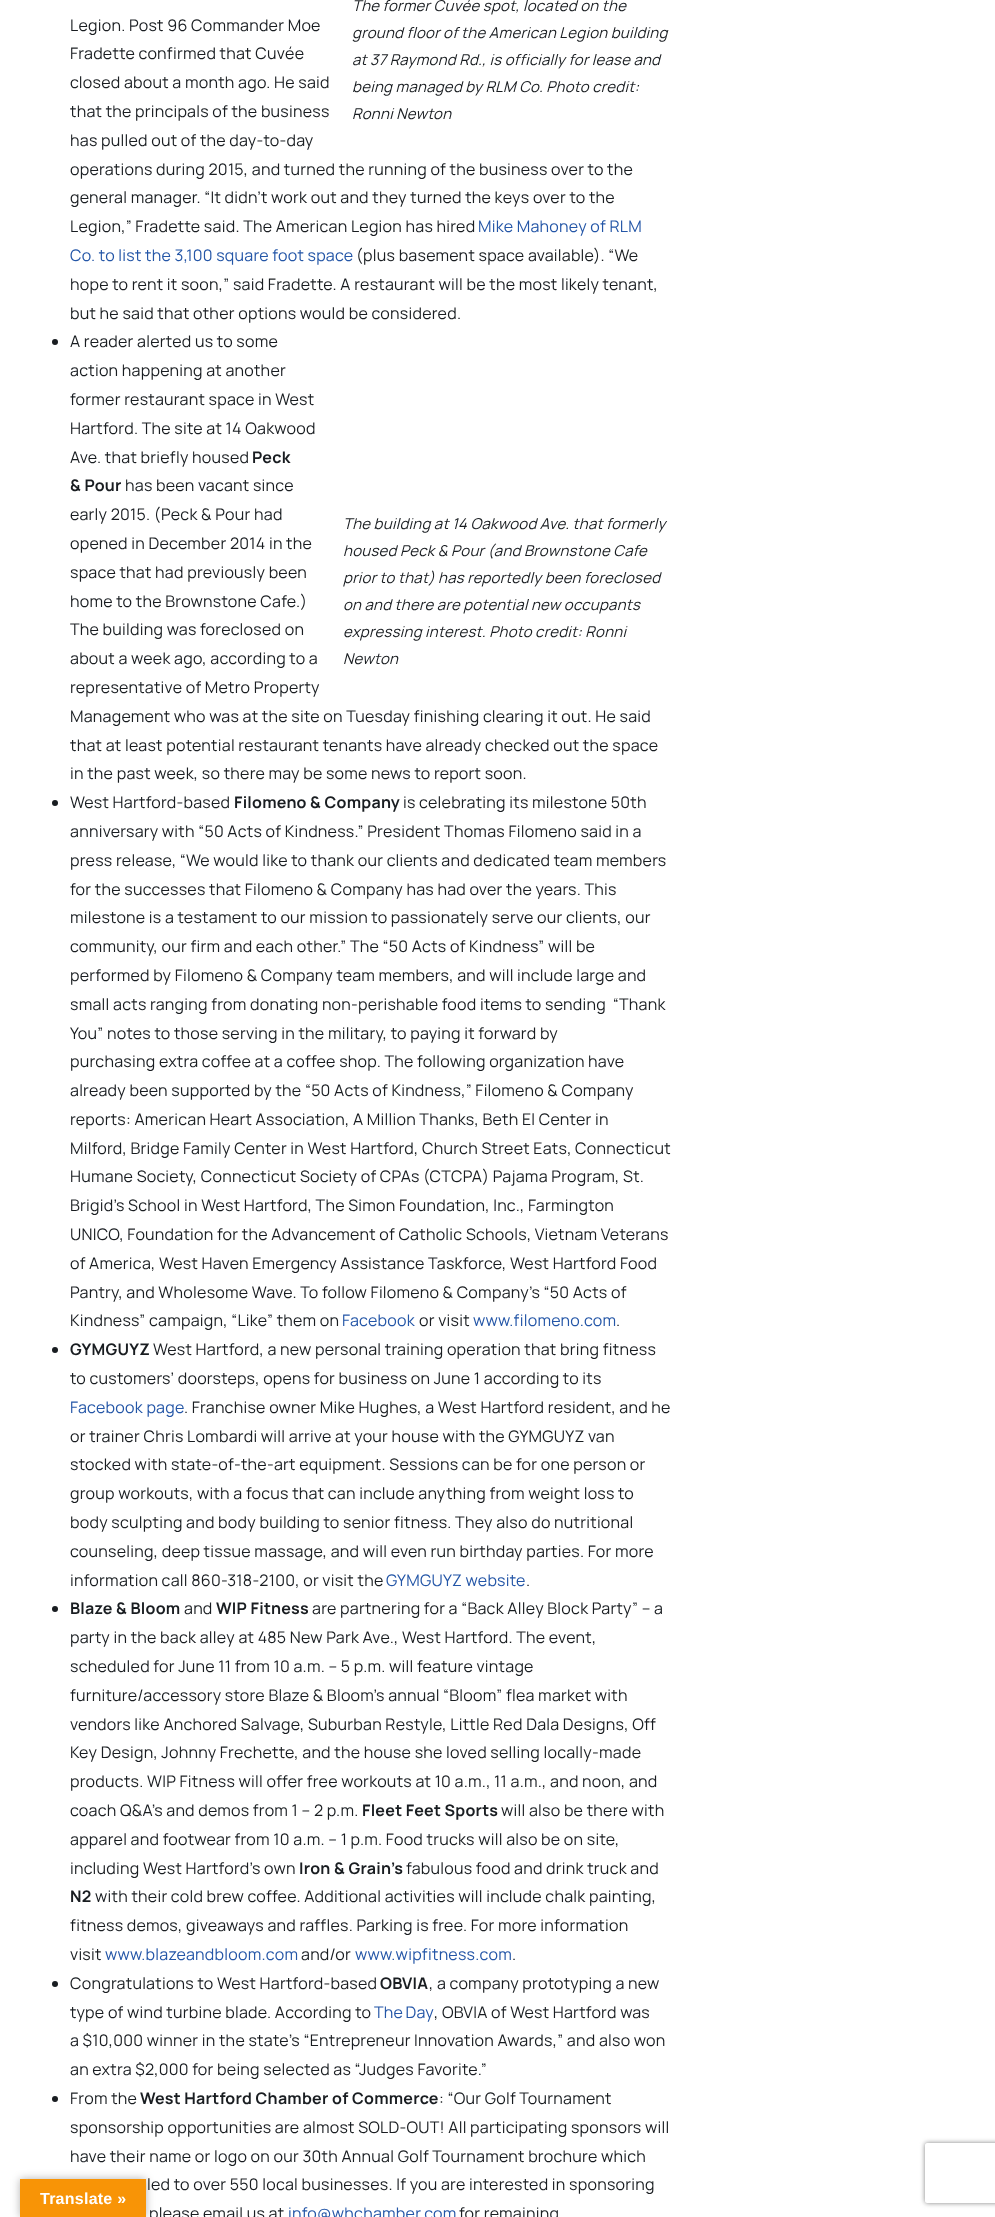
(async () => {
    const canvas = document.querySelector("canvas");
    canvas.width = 995;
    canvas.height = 2217;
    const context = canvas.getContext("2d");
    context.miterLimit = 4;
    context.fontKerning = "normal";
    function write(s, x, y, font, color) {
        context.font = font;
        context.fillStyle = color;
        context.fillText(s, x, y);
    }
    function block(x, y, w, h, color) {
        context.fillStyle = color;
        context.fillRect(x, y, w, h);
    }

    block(0, 0, 995, 2217, "rgb(255, 255, 255)");
    context.letterSpacing = "0.25px";
    write("The former Cuvée spot, located on the", 352, 11, "italic 15px Manrope", "rgb(25, 29, 33)");
    write("ground floor of the American Legion building", 352, 38, "italic 15px Manrope", "rgb(25, 29, 33)");
    write("at 37 Raymond Rd., is officially for lease and", 352, 65, "italic 15px Manrope", "rgb(25, 29, 33)");
    write("being managed by RLM Co. Photo credit:", 352, 92, "italic 15px Manrope", "rgb(25, 29, 33)");
    write("Ronni Newton", 352, 119, "italic 15px Manrope", "rgb(25, 29, 33)");
    write("Legion. Post 96 Commander Moe", 70, 31, "16px Manrope", "rgb(25, 29, 33)");
    write("Fradette confirmed that Cuvée", 70, 59, "16px Manrope", "rgb(25, 29, 33)");
    write("closed about a month ago. He said", 70, 88, "16px Manrope", "rgb(25, 29, 33)");
    write("that the principals of the business", 70, 117, "16px Manrope", "rgb(25, 29, 33)");
    write("has pulled out of the day-to-day", 70, 146, "16px Manrope", "rgb(25, 29, 33)");
    write("operations during 2015, and turned the running of the business over to the", 70, 175, "16px Manrope", "rgb(25, 29, 33)");
    write("general manager. “It didn’t work out and they turned the keys over to the", 70, 203, "16px Manrope", "rgb(25, 29, 33)");
    write("Legion,” Fradette said. The American Legion has hired", 70, 232, "16px Manrope", "rgb(25, 29, 33)");
    write("Mike Mahoney of RLM", 478, 232, "16px Manrope", "rgb(36, 86, 167)");
    write("Co. to list the 3,100 square foot space", 70, 261, "16px Manrope", "rgb(36, 86, 167)");
    write("(plus basement space available). “We", 356, 261, "16px Manrope", "rgb(25, 29, 33)");
    write("hope to rent it soon,” said Fradette. A restaurant will be the most likely tenant,", 70, 290, "16px Manrope", "rgb(25, 29, 33)");
    write("but he said that other options would be considered.", 70, 319, "16px Manrope", "rgb(25, 29, 33)");
    write("The building at 14 Oakwood Ave. that formerly", 343, 529, "italic 15px Manrope", "rgb(25, 29, 33)");
    write("housed Peck & Pour (and Brownstone Cafe", 343, 556, "italic 15px Manrope", "rgb(25, 29, 33)");
    write("prior to that) has reportedly been foreclosed", 343, 583, "italic 15px Manrope", "rgb(25, 29, 33)");
    write("on and there are potential new occupants", 343, 610, "italic 15px Manrope", "rgb(25, 29, 33)");
    write("expressing interest. Photo credit: Ronni", 343, 637, "italic 15px Manrope", "rgb(25, 29, 33)");
    write("Newton", 343, 664, "italic 15px Manrope", "rgb(25, 29, 33)");
    context.beginPath();
    context.arc(55, 342, 3, 0, Math.PI * 2);
    context.fill();
    write("A reader alerted us to some", 70, 347, "16px Manrope", "rgb(25, 29, 33)");
    write("action happening at another", 70, 376, "16px Manrope", "rgb(25, 29, 33)");
    write("former restaurant space in West", 70, 405, "16px Manrope", "rgb(25, 29, 33)");
    write("Hartford. The site at 14 Oakwood", 70, 434, "16px Manrope", "rgb(25, 29, 33)");
    write("Ave. that briefly housed", 70, 463, "16px Manrope", "rgb(25, 29, 33)");
    write("Peck", 252, 463, "bold 16px Manrope", "rgb(25, 29, 33)");
    write("& Pour", 70, 491, "bold 16px Manrope", "rgb(25, 29, 33)");
    write("has been vacant since", 125, 491, "16px Manrope", "rgb(25, 29, 33)");
    write("early 2015. (Peck & Pour had", 70, 520, "16px Manrope", "rgb(25, 29, 33)");
    write("opened in December 2014 in the", 70, 549, "16px Manrope", "rgb(25, 29, 33)");
    write("space that had previously been", 70, 578, "16px Manrope", "rgb(25, 29, 33)");
    write("home to the Brownstone Cafe.)", 70, 607, "16px Manrope", "rgb(25, 29, 33)");
    write("The building was foreclosed on", 70, 635, "16px Manrope", "rgb(25, 29, 33)");
    write("about a week ago, according to a", 70, 664, "16px Manrope", "rgb(25, 29, 33)");
    write("representative of Metro Property", 70, 693, "16px Manrope", "rgb(25, 29, 33)");
    write("Management who was at the site on Tuesday finishing clearing it out. He said", 70, 722, "16px Manrope", "rgb(25, 29, 33)");
    write("that at least potential restaurant tenants have already checked out the space", 70, 751, "16px Manrope", "rgb(25, 29, 33)");
    write("in the past week, so there may be some news to report soon.", 70, 779, "16px Manrope", "rgb(25, 29, 33)");
    context.beginPath();
    context.arc(55, 803, 3, 0, Math.PI * 2);
    context.fill();
    write("West Hartford-based", 70, 808, "16px Manrope", "rgb(25, 29, 33)");
    write("Filomeno & Company", 234, 808, "bold 16px Manrope", "rgb(25, 29, 33)");
    write("is celebrating its milestone 50th", 403, 808, "16px Manrope", "rgb(25, 29, 33)");
    write("anniversary with “50 Acts of Kindness.” President Thomas Filomeno said in a", 70, 837, "16px Manrope", "rgb(25, 29, 33)");
    write("press release, “We would like to thank our clients and dedicated team members", 70, 866, "16px Manrope", "rgb(25, 29, 33)");
    write("for the successes that Filomeno & Company has had over the years. This", 70, 895, "16px Manrope", "rgb(25, 29, 33)");
    write("milestone is a testament to our mission to passionately serve our clients, our", 70, 923, "16px Manrope", "rgb(25, 29, 33)");
    write("community, our firm and each other.” The “50 Acts of Kindness” will be", 70, 952, "16px Manrope", "rgb(25, 29, 33)");
    write("performed by Filomeno & Company team members, and will include large and", 70, 981, "16px Manrope", "rgb(25, 29, 33)");
    write("small acts ranging from donating non-perishable food items to sending  “Thank", 70, 1010, "16px Manrope", "rgb(25, 29, 33)");
    write("You” notes to those serving in the military, to paying it forward by", 70, 1039, "16px Manrope", "rgb(25, 29, 33)");
    write("purchasing extra coffee at a coffee shop. The following organization have", 70, 1067, "16px Manrope", "rgb(25, 29, 33)");
    write("already been supported by the “50 Acts of Kindness,” Filomeno & Company", 70, 1096, "16px Manrope", "rgb(25, 29, 33)");
    write("reports: American Heart Association, A Million Thanks, Beth El Center in", 70, 1125, "16px Manrope", "rgb(25, 29, 33)");
    write("Milford, Bridge Family Center in West Hartford, Church Street Eats, Connecticut", 70, 1154, "16px Manrope", "rgb(25, 29, 33)");
    write("Humane Society, Connecticut Society of CPAs (CTCPA) Pajama Program, St.", 70, 1182, "16px Manrope", "rgb(25, 29, 33)");
    write("Brigid’s School in West Hartford, The Simon Foundation, Inc., Farmington", 70, 1211, "16px Manrope", "rgb(25, 29, 33)");
    write("UNICO, Foundation for the Advancement of Catholic Schools, Vietnam Veterans", 70, 1240, "16px Manrope", "rgb(25, 29, 33)");
    write("of America, West Haven Emergency Assistance Taskforce, West Hartford Food", 70, 1269, "16px Manrope", "rgb(25, 29, 33)");
    write("Pantry, and Wholesome Wave. To follow Filomeno & Company’s “50 Acts of", 70, 1298, "16px Manrope", "rgb(25, 29, 33)");
    write("Kindness” campaign, “Like” them on", 70, 1326, "16px Manrope", "rgb(25, 29, 33)");
    write("Facebook", 342, 1326, "16px Manrope", "rgb(36, 86, 167)");
    write("or visit", 419, 1326, "16px Manrope", "rgb(25, 29, 33)");
    write("www.filomeno.com", 473, 1326, "16px Manrope", "rgb(36, 86, 167)");
    write(".", 616, 1326, "16px Manrope", "rgb(25, 29, 33)");
    context.beginPath();
    context.arc(55, 1350, 3, 0, Math.PI * 2);
    context.fill();
    write("GYMGUYZ", 70, 1355, "bold 16px Manrope", "rgb(25, 29, 33)");
    write("West Hartford, a new personal training operation that bring fitness", 153, 1355, "16px Manrope", "rgb(25, 29, 33)");
    write("to customers’ doorsteps, opens for business on June 1 according to its", 70, 1384, "16px Manrope", "rgb(25, 29, 33)");
    write("Facebook page", 70, 1413, "16px Manrope", "rgb(36, 86, 167)");
    write(". Franchise owner Mike Hughes, a West Hartford resident, and he", 184, 1413, "16px Manrope", "rgb(25, 29, 33)");
    write("or trainer Chris Lombardi will arrive at your house with the GYMGUYZ van", 70, 1442, "16px Manrope", "rgb(25, 29, 33)");
    write("stocked with state-of-the-art equipment. Sessions can be for one person or", 70, 1470, "16px Manrope", "rgb(25, 29, 33)");
    write("group workouts, with a focus that can include anything from weight loss to", 70, 1499, "16px Manrope", "rgb(25, 29, 33)");
    write("body sculpting and body building to senior fitness. They also do nutritional", 70, 1528, "16px Manrope", "rgb(25, 29, 33)");
    write("counseling, deep tissue massage, and will even run birthday parties. For more", 70, 1557, "16px Manrope", "rgb(25, 29, 33)");
    write("information call 860-318-2100, or visit the", 70, 1586, "16px Manrope", "rgb(25, 29, 33)");
    write("GYMGUYZ website", 386, 1586, "16px Manrope", "rgb(36, 86, 167)");
    write(".", 526, 1586, "16px Manrope", "rgb(25, 29, 33)");
    context.beginPath();
    context.arc(55, 1609, 3, 0, Math.PI * 2);
    context.fill();
    write("Blaze & Bloom", 70, 1614, "bold 16px Manrope", "rgb(25, 29, 33)");
    write("and", 184, 1614, "16px Manrope", "rgb(25, 29, 33)");
    write("WIP Fitness", 216, 1614, "bold 16px Manrope", "rgb(25, 29, 33)");
    write("are partnering for a “Back Alley Block Party” – a", 312, 1614, "16px Manrope", "rgb(25, 29, 33)");
    write("party in the back alley at 485 New Park Ave., West Hartford. The event,", 70, 1643, "16px Manrope", "rgb(25, 29, 33)");
    write("scheduled for June 11 from 10 a.m. – 5 p.m. will feature vintage", 70, 1672, "16px Manrope", "rgb(25, 29, 33)");
    write("furniture/accessory store Blaze & Bloom’s annual “Bloom” flea market with", 70, 1701, "16px Manrope", "rgb(25, 29, 33)");
    write("vendors like Anchored Salvage, Suburban Restyle, Little Red Dala Designs, Off", 70, 1730, "16px Manrope", "rgb(25, 29, 33)");
    write("Key Design, Johnny Frechette, and the house she loved selling locally-made", 70, 1758, "16px Manrope", "rgb(25, 29, 33)");
    write("products. WIP Fitness will offer free workouts at 10 a.m., 11 a.m., and noon, and", 70, 1787, "16px Manrope", "rgb(25, 29, 33)");
    write("coach Q&A’s and demos from 1 – 2 p.m.", 70, 1816, "16px Manrope", "rgb(25, 29, 33)");
    write("Fleet Feet Sports", 362, 1816, "bold 16px Manrope", "rgb(25, 29, 33)");
    write("will also be there with", 501, 1816, "16px Manrope", "rgb(25, 29, 33)");
    write("apparel and footwear from 10 a.m. – 1 p.m. Food trucks will also be on site,", 70, 1845, "16px Manrope", "rgb(25, 29, 33)");
    write("including West Hartford’s own", 70, 1874, "16px Manrope", "rgb(25, 29, 33)");
    write("Iron & Grain’s", 299, 1874, "bold 16px Manrope", "rgb(25, 29, 33)");
    write("fabulous food and drink truck and", 406, 1874, "16px Manrope", "rgb(25, 29, 33)");
    write("N2", 70, 1902, "bold 16px Manrope", "rgb(25, 29, 33)");
    write("with their cold brew coffee. Additional activities will include chalk painting,", 95, 1902, "16px Manrope", "rgb(25, 29, 33)");
    write("fitness demos, giveaways and raffles. Parking is free. For more information", 70, 1931, "16px Manrope", "rgb(25, 29, 33)");
    write("visit", 70, 1960, "16px Manrope", "rgb(25, 29, 33)");
    write("www.blazeandbloom.com", 105, 1960, "16px Manrope", "rgb(36, 86, 167)");
    write("and/or", 301, 1960, "16px Manrope", "rgb(25, 29, 33)");
    write("www.wipfitness.com", 355, 1960, "16px Manrope", "rgb(36, 86, 167)");
    write(".", 512, 1960, "16px Manrope", "rgb(25, 29, 33)");
    context.beginPath();
    context.arc(55, 1984, 3, 0, Math.PI * 2);
    context.fill();
    write("Congratulations to West Hartford-based", 70, 1989, "16px Manrope", "rgb(25, 29, 33)");
    write("OBVIA", 380, 1989, "bold 16px Manrope", "rgb(25, 29, 33)");
    write(", a company prototyping a new", 429, 1989, "16px Manrope", "rgb(25, 29, 33)");
    write("type of wind turbine blade. According to", 70, 2018, "16px Manrope", "rgb(25, 29, 33)");
    context.wordSpacing = "-1px";
    write("The Day", 374, 2018, "16px Manrope", "rgb(36, 86, 167)");
    context.wordSpacing = "0px";
    write(", OBVIA of West Hartford was", 434, 2018, "16px Manrope", "rgb(25, 29, 33)");
    write("a $10,000 winner in the state’s “Entrepreneur Innovation Awards,” and also won", 70, 2046, "16px Manrope", "rgb(25, 29, 33)");
    write("an extra $2,000 for being selected as “Judges Favorite.”", 70, 2075, "16px Manrope", "rgb(25, 29, 33)");
    context.beginPath();
    context.arc(55, 2099, 3, 0, Math.PI * 2);
    context.fill();
    write("From the", 70, 2104, "16px Manrope", "rgb(25, 29, 33)");
    write("West Hartford Chamber of Commerce", 140, 2104, "bold 16px Manrope", "rgb(25, 29, 33)");
    write(": “Our Golf Tournament", 439, 2104, "16px Manrope", "rgb(25, 29, 33)");
    write("sponsorship opportunities are almost SOLD-OUT! All participating sponsors will", 70, 2133, "16px Manrope", "rgb(25, 29, 33)");
    write("have their name or logo on our 30th Annual Golf Tournament brochure which", 70, 2162, "16px Manrope", "rgb(25, 29, 33)");
    write("led to over 550 local businesses. If you are interested in sponsoring", 147, 2190, "16px Manrope", "rgb(25, 29, 33)");
    write("please email us at", 149, 2219, "16px Manrope", "rgb(25, 29, 33)");
    write("info@whchamber.com", 288, 2219, "16px Manrope", "rgb(36, 86, 167)");
    write("for remaining", 459, 2219, "16px Manrope", "rgb(25, 29, 33)");
    context.save();
    context.beginPath();
    context.moveTo(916, 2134);
    context.lineTo(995, 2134);
    context.lineTo(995, 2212);
    context.lineTo(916, 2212);
    context.closePath();
    context.moveTo(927, 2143);
    context.lineTo(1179, 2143);
    context.bezierCurveTo(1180, 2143, 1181, 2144, 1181, 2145);
    context.lineTo(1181, 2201);
    context.bezierCurveTo(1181, 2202, 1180, 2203, 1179, 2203);
    context.lineTo(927, 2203);
    context.bezierCurveTo(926, 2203, 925, 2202, 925, 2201);
    context.lineTo(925, 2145);
    context.bezierCurveTo(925, 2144, 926, 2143, 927, 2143);
    context.closePath();
    context.clip("evenodd");
    context.fillStyle = "rgb(128, 128, 128)";
    context.filter = "blur(2.5px)";
    context.beginPath();
    context.roundRect(925, 2143, 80, 60, 2);
    context.fill();
    context.filter = "none";
    context.restore();
    context.fillStyle = "rgba(0, 0, 0, 0.3)";
    context.filter = "blur(4.5px)";
    context.beginPath();
    context.rect(20, 2179, 126, 38);
    context.fill();
    context.filter = "none";
    block(20, 2179, 126, 38, "rgb(248, 148, 6)");
    write("Translate »", 40, 2204, "bold 16px Liberation Sans", "rgb(255, 255, 255)");
})();
